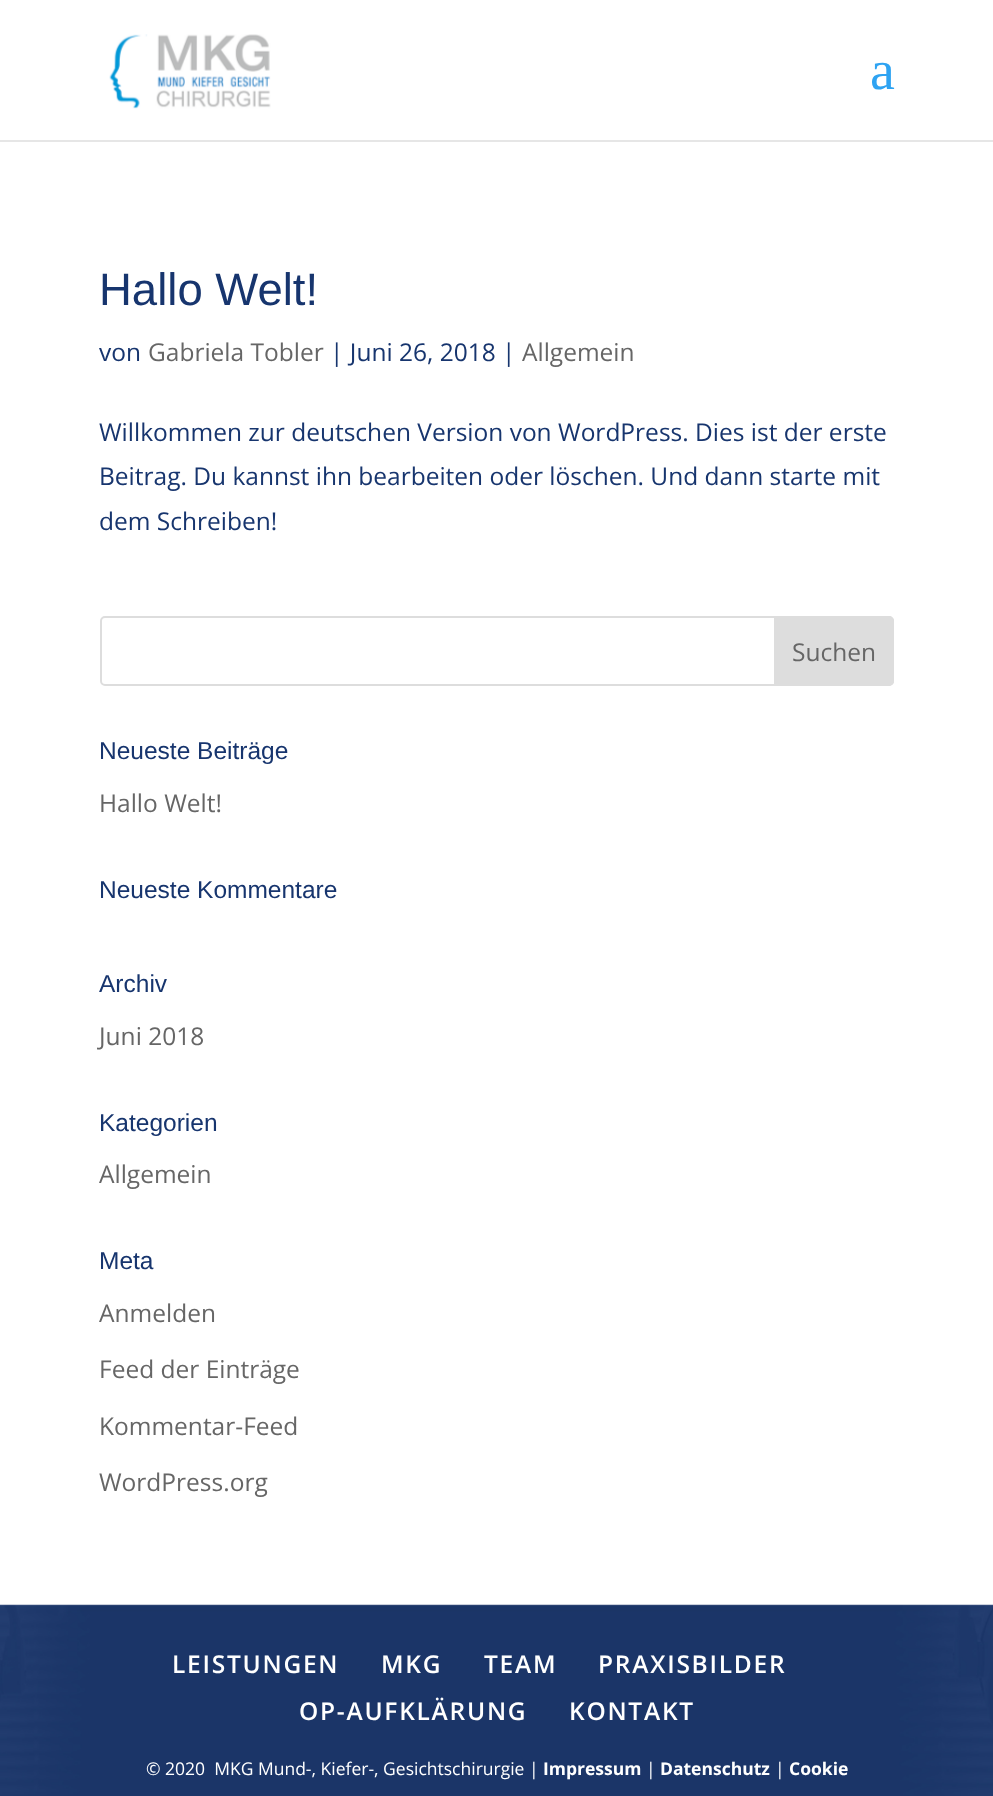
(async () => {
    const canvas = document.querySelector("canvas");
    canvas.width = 993;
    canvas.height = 1796;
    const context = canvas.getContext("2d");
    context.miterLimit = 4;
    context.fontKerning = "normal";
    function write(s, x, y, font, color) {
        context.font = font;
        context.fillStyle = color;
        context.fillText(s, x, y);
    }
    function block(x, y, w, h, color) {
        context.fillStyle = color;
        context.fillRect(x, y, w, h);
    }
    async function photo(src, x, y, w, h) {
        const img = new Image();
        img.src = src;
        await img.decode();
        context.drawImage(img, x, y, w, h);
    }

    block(0, 0, 993, 1796, "rgb(255, 255, 255)");
    block(0, 140, 993, 2, "rgb(230, 230, 230)");
    await photo("media/1.png", 109, 34, 162, 75);
    write("a", 870, 89, "56px Liberation Serif", "rgb(46, 163, 242)");
    write("Hallo Welt!", 99, 305, "45.5px Liberation Sans", "rgb(23, 53, 110)");
    write("von", 99, 361, "24.5px Open Sans", "rgb(23, 53, 110)");
    write("Gabriela Tobler", 148, 361, "24.5px Open Sans", "rgb(102, 102, 102)");
    write("| Juni 26, 2018 |", 330, 361, "24.5px Open Sans", "rgb(23, 53, 110)");
    write("Allgemein", 522, 361, "24.5px Open Sans", "rgb(102, 102, 102)");
    write("Willkommen zur deutschen Version von WordPress. Dies ist der erste", 99, 441, "24.5px Open Sans", "rgb(23, 53, 110)");
    write("Beitrag. Du kannst ihn bearbeiten oder löschen. Und dann starte mit", 99, 485, "24.5px Open Sans", "rgb(23, 53, 110)");
    write("dem Schreiben!", 99, 530, "24.5px Open Sans", "rgb(23, 53, 110)");
    context.beginPath();
    context.roundRect(101, 617, 792, 68, 4);
    context.strokeStyle = "rgb(221, 221, 221)";
    context.lineWidth = 2;
    context.stroke();
    context.fillStyle = "rgb(221, 221, 221)";
    context.beginPath();
    context.roundRect(775, 617, 118, 68, [0, 4, 4, 0]);
    context.fill();
    context.stroke();
    write("Suchen", 792, 661, "24.5px Open Sans", "rgb(102, 102, 102)");
    write("Neueste Beiträge", 99, 759, "24.5px Liberation Sans", "rgb(23, 53, 110)");
    write("Hallo Welt!", 99, 812, "24.5px Open Sans", "rgb(102, 102, 102)");
    write("Neueste Kommentare", 99, 898, "24.5px Liberation Sans", "rgb(23, 53, 110)");
    write("Archiv", 99, 992, "24.5px Liberation Sans", "rgb(23, 53, 110)");
    write("Juni 2018", 99, 1045, "24.5px Open Sans", "rgb(102, 102, 102)");
    write("Kategorien", 99, 1131, "24.5px Liberation Sans", "rgb(23, 53, 110)");
    write("Allgemein", 99, 1183, "24.5px Open Sans", "rgb(102, 102, 102)");
    write("Meta", 99, 1269, "24.5px Liberation Sans", "rgb(23, 53, 110)");
    write("Anmelden", 99, 1322, "24.5px Open Sans", "rgb(102, 102, 102)");
    write("Feed der Einträge", 99, 1378, "24.5px Open Sans", "rgb(102, 102, 102)");
    write("Kommentar-Feed", 99, 1435, "24.5px Open Sans", "rgb(102, 102, 102)");
    write("WordPress.org", 99, 1491, "24.5px Open Sans", "rgb(102, 102, 102)");
    await photo("media/2.png", 0, 1604, 993, 192);
    context.letterSpacing = "1.75px";
    write("LEISTUNGEN", 172, 1673, "600 24.5px Open Sans", "rgb(255, 255, 255)");
    write("MKG", 381, 1673, "600 24.5px Open Sans", "rgb(255, 255, 255)");
    write("TEAM", 484, 1673, "600 24.5px Open Sans", "rgb(255, 255, 255)");
    write("PRAXISBILDER", 598, 1673, "600 24.5px Open Sans", "rgb(255, 255, 255)");
    write("OP-AUFKLÄRUNG", 299, 1720, "600 24.5px Open Sans", "rgb(255, 255, 255)");
    write("KONTAKT", 569, 1720, "600 24.5px Open Sans", "rgb(255, 255, 255)");
    context.letterSpacing = "0px";
    write("© 2020  MKG Mund-, Kiefer-, Gesichtschirurgie |", 146, 1775, "17.5px Open Sans", "rgb(255, 255, 255)");
    write("Impressum", 543, 1775, "bold 17.5px Open Sans", "rgb(255, 255, 255)");
    write("|", 646, 1775, "17.5px Open Sans", "rgb(255, 255, 255)");
    write("Datenschutz", 660, 1775, "bold 17.5px Open Sans", "rgb(255, 255, 255)");
    write("|", 775, 1775, "17.5px Open Sans", "rgb(255, 255, 255)");
    write("Cookie", 789, 1775, "bold 17.5px Open Sans", "rgb(255, 255, 255)");
})();
